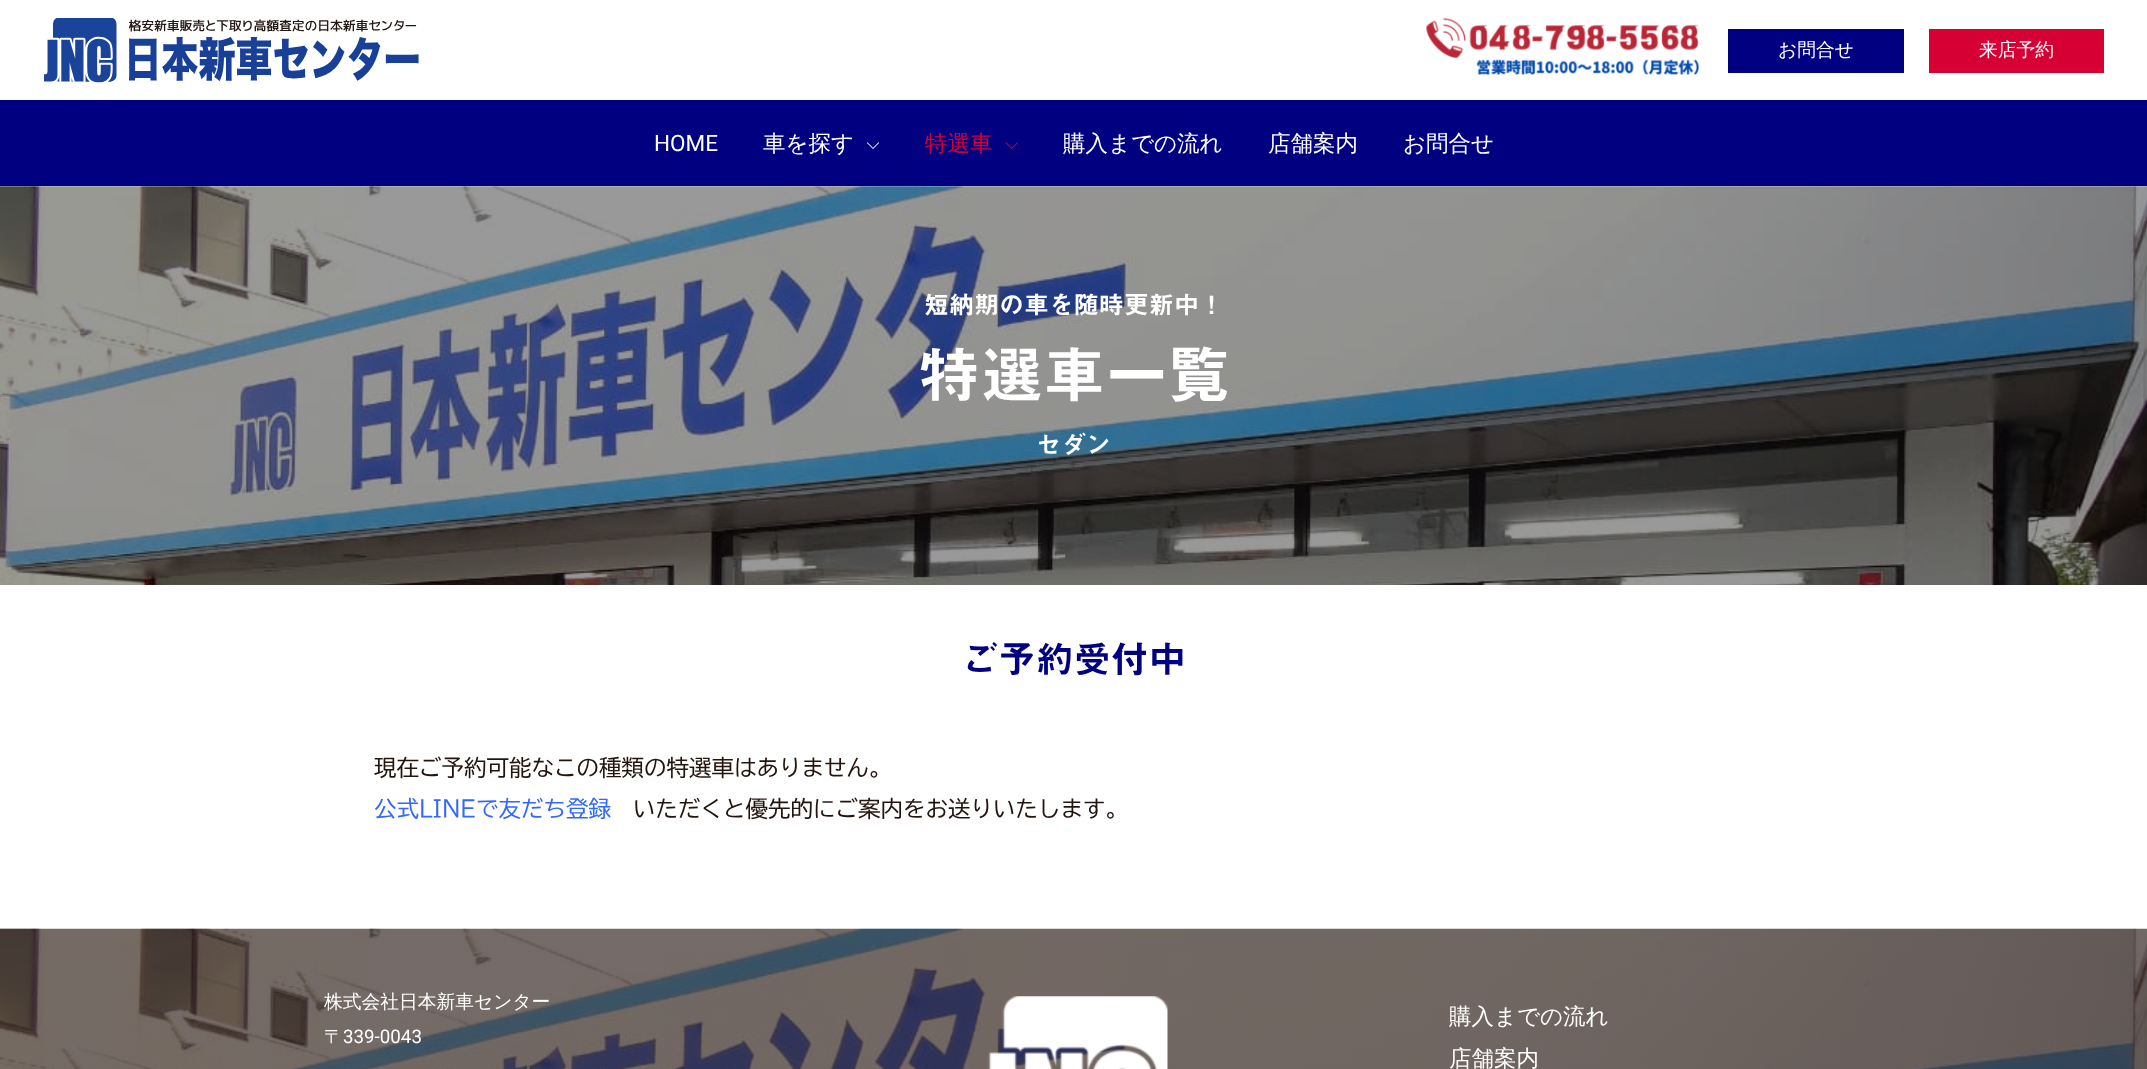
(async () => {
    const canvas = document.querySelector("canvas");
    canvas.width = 2147;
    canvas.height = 1069;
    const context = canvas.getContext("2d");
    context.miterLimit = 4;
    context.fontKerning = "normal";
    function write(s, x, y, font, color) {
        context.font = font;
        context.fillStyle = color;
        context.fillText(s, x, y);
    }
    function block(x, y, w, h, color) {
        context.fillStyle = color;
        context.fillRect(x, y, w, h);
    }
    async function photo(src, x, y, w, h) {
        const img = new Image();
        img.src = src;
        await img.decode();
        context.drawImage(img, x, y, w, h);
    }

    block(0, 0, 2147, 1069, "rgb(255, 255, 255)");
    await photo("media/1.png", 44, 18, 375, 65);
    await photo("media/2.png", 1426, 17, 274, 58);
    block(1728, 29, 176, 44, "rgb(0, 0, 128)");
    write("お問合せ", 1778, 56, "500 18.75px WenQuanYi Zen Hei", "rgb(255, 255, 255)");
    block(1929, 29, 175, 44, "rgb(215, 0, 53)");
    write("来店予約", 1979, 56, "500 18.75px WenQuanYi Zen Hei", "rgb(255, 255, 255)");
    block(0, 100, 2147, 86, "rgb(0, 0, 128)");
    write("HOME", 654, 151, "22.5px Roboto", "rgb(255, 255, 255)");
    write("車を探す", 763, 151, "500 22.5px WenQuanYi Zen Hei", "rgb(255, 255, 255)");
    await photo("media/3.png", 867, 142, 12, 7);
    write("特選車", 925, 151, "500 22.5px WenQuanYi Zen Hei", "rgb(215, 0, 53)");
    await photo("media/4.png", 1005, 142, 13, 7);
    write("購入までの流れ", 1063, 151, "500 22.5px WenQuanYi Zen Hei", "rgb(255, 255, 255)");
    write("店舗案内", 1268, 151, "500 22.5px WenQuanYi Zen Hei", "rgb(255, 255, 255)");
    write("お問合せ", 1403, 151, "500 22.5px WenQuanYi Zen Hei", "rgb(255, 255, 255)");
    await photo("media/5.png", 0, 186, 2147, 399);
    write("短納期の車を随時更新中！", 924, 314, "600 25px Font", "rgb(255, 255, 255)");
    write("特選車一覧", 918, 398, "600 62.5px Font", "rgb(255, 255, 255)");
    write("セダン", 1036, 454, "600 25px Font", "rgb(255, 255, 255)");
    write("ご予約受付中", 961, 673, "600 37.5px Font", "rgb(0, 0, 128)");
    write("現在ご予約可能なこの種類の特選車はありません。", 374, 776, "22.5px Font", "rgb(36, 20, 14)");
    write("公式LINEで友だち登録", 374, 817, "22.5px Font", "rgb(48, 104, 255)");
    write("いただくと優先的にご案内をお送りいたします。", 633, 817, "22.5px Font", "rgb(36, 20, 14)");
    await photo("media/6.png", 0, 928, 2147, 141);
    write("株式会社日本新車センター", 324, 1008, "500 18.75px WenQuanYi Zen Hei", "rgb(255, 255, 255)");
    write("〒", 324, 1043, "500 18.75px WenQuanYi Zen Hei", "rgb(255, 255, 255)");
    write("339-0043", 343, 1043, "18.75px Roboto", "rgb(255, 255, 255)");
    await photo("media/7.png", 988, 996, 180, 73);
    write("購入までの流れ", 1449, 1024, "500 22.5px WenQuanYi Zen Hei", "rgb(255, 255, 255)");
    write("店舗案内", 1449, 1066, "500 22.5px WenQuanYi Zen Hei", "rgb(255, 255, 255)");
})();
